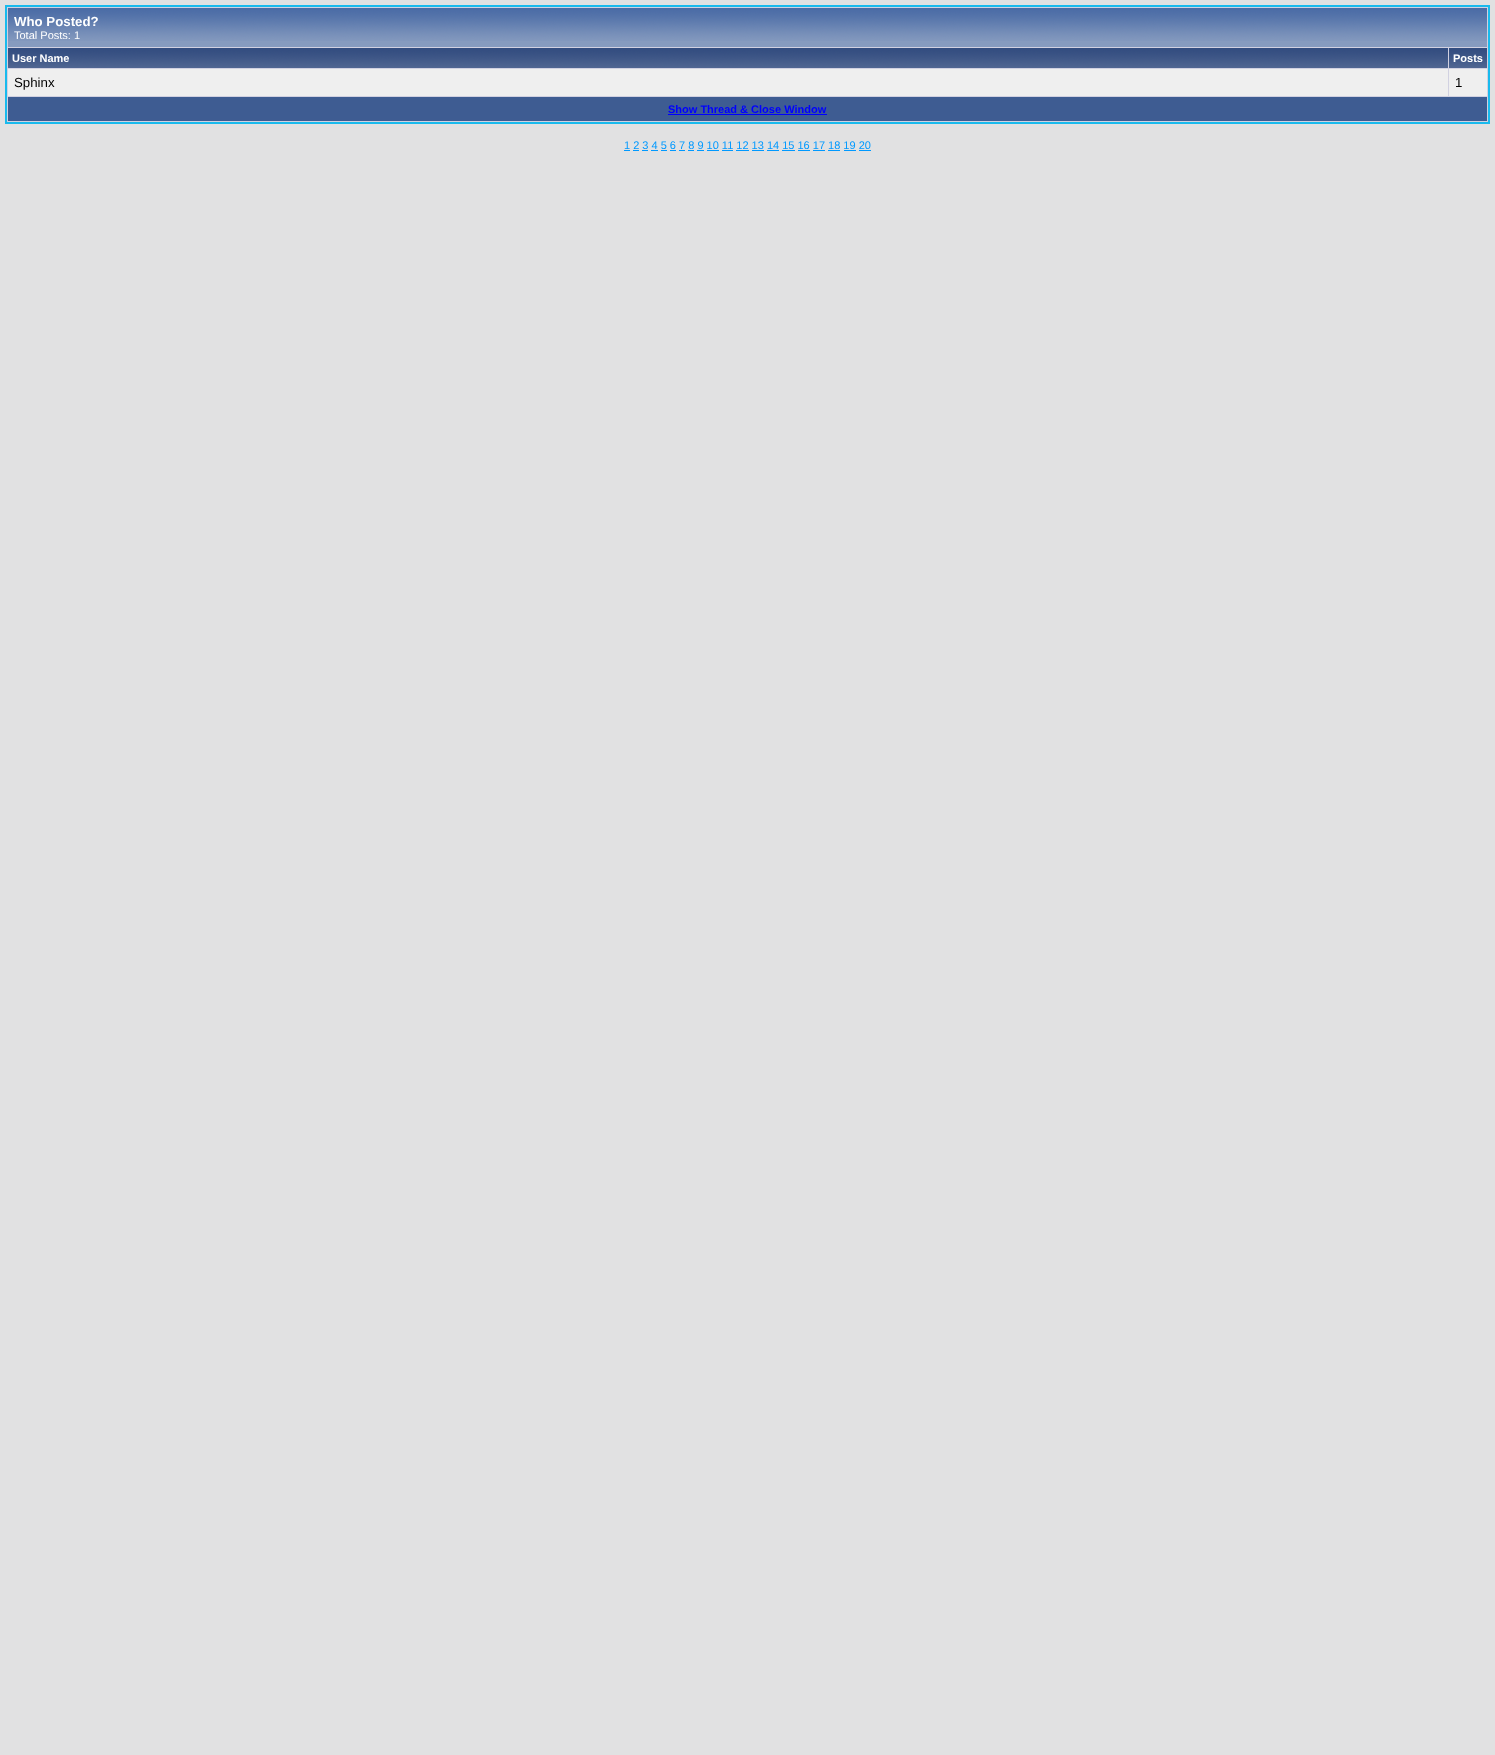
(async () => {
    const canvas = document.querySelector("canvas");
    canvas.width = 1495;
    canvas.height = 1755;
    const context = canvas.getContext("2d");
    context.miterLimit = 4;
    context.fontKerning = "normal";
    function write(s, x, y, font, color) {
        context.font = font;
        context.fillStyle = color;
        context.fillText(s, x, y);
    }
    function block(x, y, w, h, color) {
        context.fillStyle = color;
        context.fillRect(x, y, w, h);
    }
    async function photo(src, x, y, w, h) {
        const img = new Image();
        img.src = src;
        await img.decode();
        context.drawImage(img, x, y, w, h);
    }

    block(0, 0, 1495, 1755, "rgb(225, 225, 226)");
    context.fillStyle = "rgb(209, 209, 225)";
    context.beginPath();
    context.rect(6, 6, 1483, 117);
    context.fill();
    context.strokeStyle = "rgb(25, 186, 237)";
    context.lineWidth = 2;
    context.stroke();
    block(8, 41, 1479, 6, "rgb(134, 155, 191)");
    await photo("media/1.png", 8, 8, 1479, 33);
    write("Who Posted?", 14, 26, "bold 13.25px Liberation Sans", "rgb(255, 255, 255)");
    write("Total Posts: 1", 14, 39, "11px Liberation Sans", "rgb(255, 255, 255)");
    await photo("media/2.png", 8, 48, 1440, 20);
    write("User Name", 12, 62, "bold 11px Liberation Sans", "rgb(255, 255, 255)");
    await photo("media/3.png", 1449, 48, 38, 20);
    write("Posts", 1453, 62, "bold 11px Liberation Sans", "rgb(255, 255, 255)");
    block(8, 69, 1440, 27, "rgb(239, 239, 239)");
    write("Sphinx", 14, 87, "13.25px Liberation Sans", "rgb(0, 0, 0)");
    block(1449, 69, 38, 27, "rgb(239, 239, 239)");
    write("1", 1455, 87, "13.25px Liberation Sans", "rgb(0, 0, 0)");
    block(8, 97, 1479, 24, "rgb(62, 92, 146)");
    write("Show Thread & Close Window", 668, 113, "bold 11px Liberation Sans", "rgb(0, 0, 255)");
    block(668, 114, 159, 1, "rgb(0, 0, 255)");
    write("1 2 3 4 5 6 7 8 9 10 11 12 13 14 15 16 17 18 19 20", 624, 149, "11px Liberation Sans", "rgb(0, 153, 255)");
    block(624, 150, 6, 1, "rgb(0, 153, 255)");
    block(633, 150, 6, 1, "rgb(0, 153, 255)");
    block(642, 150, 6, 1, "rgb(0, 153, 255)");
    block(651, 150, 7, 1, "rgb(0, 153, 255)");
    block(661, 150, 6, 1, "rgb(0, 153, 255)");
    block(670, 150, 6, 1, "rgb(0, 153, 255)");
    block(679, 150, 6, 1, "rgb(0, 153, 255)");
    block(688, 150, 6, 1, "rgb(0, 153, 255)");
    block(697, 150, 7, 1, "rgb(0, 153, 255)");
    block(707, 150, 12, 1, "rgb(0, 153, 255)");
    block(722, 150, 11, 1, "rgb(0, 153, 255)");
    block(736, 150, 13, 1, "rgb(0, 153, 255)");
    block(752, 150, 12, 1, "rgb(0, 153, 255)");
    block(767, 150, 12, 1, "rgb(0, 153, 255)");
    block(782, 150, 13, 1, "rgb(0, 153, 255)");
    block(798, 150, 12, 1, "rgb(0, 153, 255)");
    block(813, 150, 12, 1, "rgb(0, 153, 255)");
    block(828, 150, 12, 1, "rgb(0, 153, 255)");
    block(844, 150, 12, 1, "rgb(0, 153, 255)");
    block(859, 150, 12, 1, "rgb(0, 153, 255)");
})();
